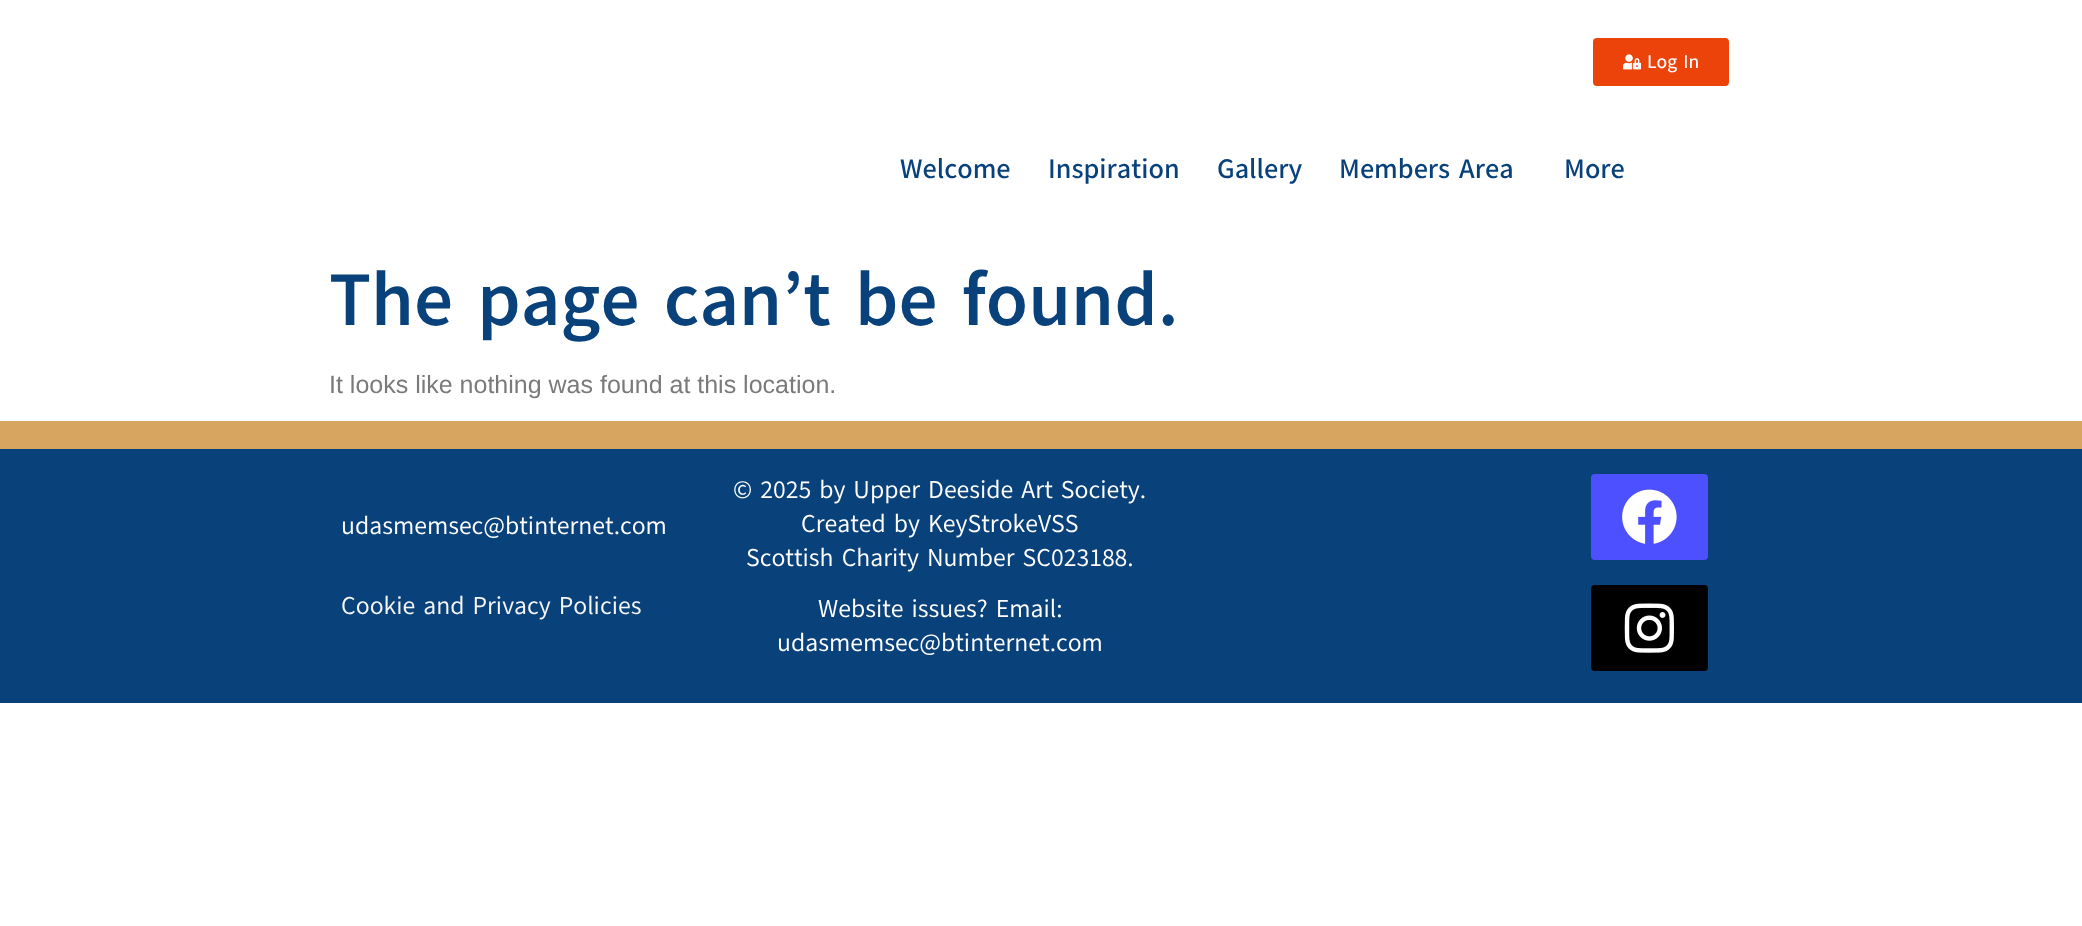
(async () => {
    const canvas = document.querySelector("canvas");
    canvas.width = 2082;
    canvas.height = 926;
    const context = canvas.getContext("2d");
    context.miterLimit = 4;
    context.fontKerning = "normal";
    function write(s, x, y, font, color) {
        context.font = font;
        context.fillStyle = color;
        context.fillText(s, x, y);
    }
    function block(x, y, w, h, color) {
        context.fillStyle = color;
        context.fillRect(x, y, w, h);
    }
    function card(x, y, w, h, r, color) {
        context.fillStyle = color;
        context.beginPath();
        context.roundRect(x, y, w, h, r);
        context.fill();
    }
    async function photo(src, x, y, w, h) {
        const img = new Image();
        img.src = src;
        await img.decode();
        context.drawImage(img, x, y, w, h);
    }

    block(0, 0, 2082, 926, "rgb(255, 255, 255)");
    card(1593, 38, 136, 48, 4, "rgb(235, 67, 9)");
    await photo("media/1.png", 1623, 54, 18, 16);
    write("Log In", 1647, 68, "500 19px Akatab", "rgb(255, 255, 255)");
    write("Welcome", 900, 178, "600 27.5px Akatab", "rgb(9, 65, 123)");
    write("Inspiration", 1048, 178, "600 27.5px Akatab", "rgb(9, 65, 123)");
    write("Gallery", 1217, 178, "600 27.5px Akatab", "rgb(9, 65, 123)");
    write("Members Area", 1339, 178, "600 27.5px Akatab", "rgb(9, 65, 123)");
    write("More", 1564, 178, "600 27.5px Akatab", "rgb(9, 65, 123)");
    write("The page can’t be found.", 329, 325, "bold 75px Akatab", "rgb(9, 65, 123)");
    write("It looks like nothing was found at this location.", 329, 393, "25px Liberation Sans", "rgb(122, 122, 122)");
    block(0, 421, 2082, 28, "rgb(215, 165, 96)");
    block(0, 449, 2082, 254, "rgb(9, 65, 123)");
    write("udasmemsec@btinternet.com", 341, 534, "25px Akatab", "rgb(255, 255, 255)");
    write("Cookie and Privacy Policies", 341, 614, "25px Akatab", "rgb(246, 246, 246)");
    write("© 2025 by Upper Deeside Art Society.", 733, 498, "25px Akatab", "rgb(255, 255, 255)");
    write("Created by KeyStrokeVSS", 801, 532, "25px Akatab", "rgb(255, 255, 255)");
    write("Scottish Charity Number SC023188.", 746, 566, "25px Akatab", "rgb(255, 255, 255)");
    write("Website issues? Email:", 818, 617, "25px Akatab", "rgb(255, 255, 255)");
    write("udasmemsec@btinternet.com", 777, 651, "25px Akatab", "rgb(255, 255, 255)");
    card(1591, 474, 117, 86, 4, "rgb(76, 80, 255)");
    await photo("media/2.png", 1622, 489, 55, 55);
    card(1591, 585, 117, 86, 4, "rgb(0, 0, 0)");
    await photo("media/3.png", 1624, 603, 50, 50);
})();
